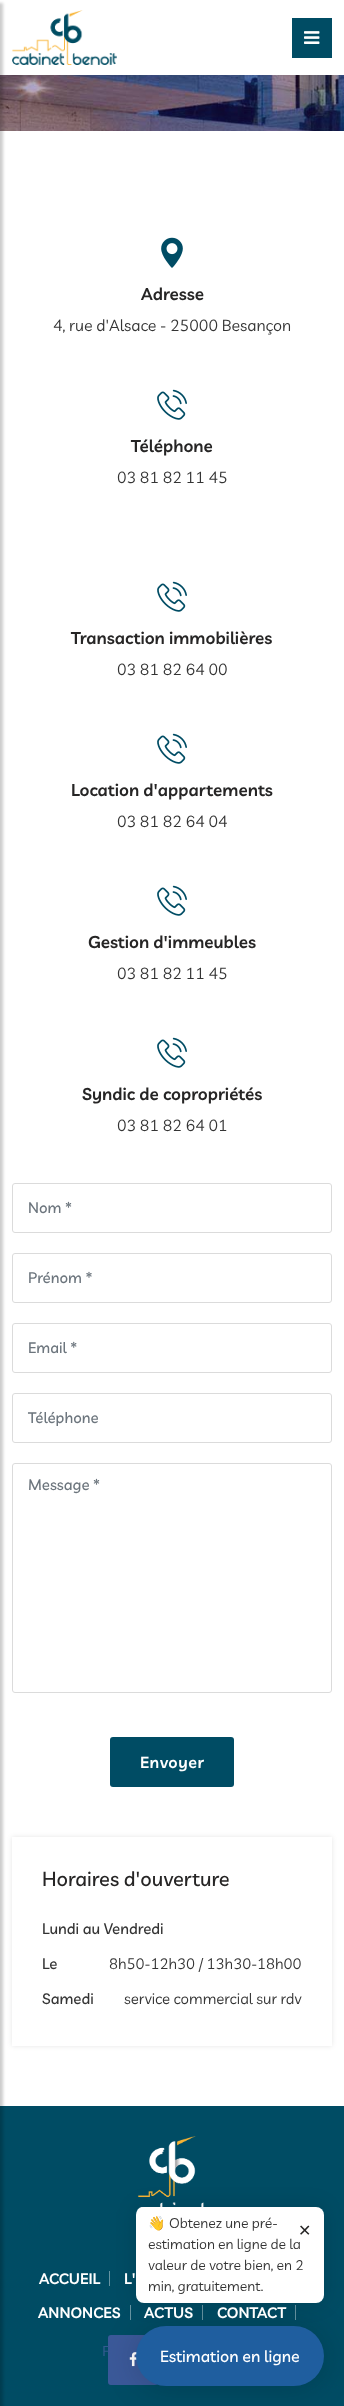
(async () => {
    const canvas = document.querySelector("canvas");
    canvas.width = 344;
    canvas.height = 2406;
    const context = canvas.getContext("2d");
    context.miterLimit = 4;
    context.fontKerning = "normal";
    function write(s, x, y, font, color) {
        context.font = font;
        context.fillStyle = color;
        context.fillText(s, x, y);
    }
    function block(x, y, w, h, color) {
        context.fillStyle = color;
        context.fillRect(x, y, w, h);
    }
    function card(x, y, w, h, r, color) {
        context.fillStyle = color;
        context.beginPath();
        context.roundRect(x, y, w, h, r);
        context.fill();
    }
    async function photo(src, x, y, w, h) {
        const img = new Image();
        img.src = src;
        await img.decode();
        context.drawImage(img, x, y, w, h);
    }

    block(0, 0, 344, 2406, "rgb(255, 255, 255)");
    await photo("media/3.png", 0, 75, 344, 56);
    context.fillStyle = "rgba(0, 0, 0, 0.1)";
    context.filter = "blur(2.5px)";
    context.beginPath();
    context.rect(0, 0, 344, 75);
    context.fill();
    context.filter = "none";
    block(0, 0, 344, 75, "rgb(255, 255, 255)");
    await photo("media/1.png", 12, 10, 105, 55);
    block(292, 18, 40, 40, "rgb(0, 76, 100)");
    await photo("media/2.png", 304, 31, 16, 13);
    block(0, 2106, 344, 300, "rgb(0, 76, 100)");
    context.fillStyle = "rgba(0, 0, 0, 0.2)";
    context.filter = "blur(1.5px)";
    context.beginPath();
    context.rect(-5, 3, 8, 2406);
    context.fill();
    context.filter = "none";
    await photo("media/4.png", 161, 237, 22, 31);
    write("Adresse", 141, 300, "600 17px Livvic", "rgb(38, 37, 37)");
    write("4, rue d'Alsace - 25000 Besançon", 53, 331, "16px Livvic", "rgb(52, 52, 52)");
    await photo("media/5.png", 157, 389, 30, 31);
    write("Téléphone", 131, 452, "600 17px Livvic", "rgb(38, 37, 37)");
    write("03 81 82 11 45", 117, 483, "16px Livvic", "rgb(52, 52, 52)");
    await photo("media/5.png", 157, 581, 30, 31);
    write("Transaction immobilières", 71, 644, "600 17px Livvic", "rgb(38, 37, 37)");
    write("03 81 82 64 00", 117, 675, "16px Livvic", "rgb(52, 52, 52)");
    await photo("media/5.png", 157, 733, 30, 31);
    write("Location d'appartements", 71, 796, "600 17px Livvic", "rgb(38, 37, 37)");
    write("03 81 82 64 04", 117, 827, "16px Livvic", "rgb(52, 52, 52)");
    await photo("media/5.png", 157, 885, 30, 31);
    write("Gestion d'immeubles", 88, 948, "600 17px Livvic", "rgb(38, 37, 37)");
    write("03 81 82 11 45", 117, 979, "16px Livvic", "rgb(52, 52, 52)");
    await photo("media/5.png", 157, 1037, 30, 31);
    write("Syndic de copropriétés", 82, 1100, "600 17px Livvic", "rgb(38, 37, 37)");
    write("03 81 82 64 01", 117, 1131, "16px Livvic", "rgb(52, 52, 52)");
    context.beginPath();
    context.roundRect(12.5, 1183.5, 319, 49, 2.5);
    context.strokeStyle = "rgb(219, 219, 219)";
    context.stroke();
    write("Nom *", 28, 1213, "500 15px Livvic", "rgb(108, 117, 125)");
    context.beginPath();
    context.roundRect(12.5, 1253.5, 319, 49, 2.5);
    context.stroke();
    write("Prénom *", 28, 1283, "500 15px Livvic", "rgb(108, 117, 125)");
    context.beginPath();
    context.roundRect(12.5, 1323.5, 319, 49, 2.5);
    context.stroke();
    write("Email *", 28, 1353, "500 15px Livvic", "rgb(108, 117, 125)");
    context.beginPath();
    context.roundRect(12.5, 1393.5, 319, 49, 2.5);
    context.stroke();
    write("Téléphone", 28, 1423, "500 15px Livvic", "rgb(108, 117, 125)");
    context.beginPath();
    context.roundRect(12.5, 1463.5, 319, 229, 2.5);
    context.stroke();
    write("Message *", 28, 1490, "500 15px Livvic", "rgb(108, 117, 125)");
    card(110, 1737, 124, 50, 3, "rgb(0, 76, 100)");
    context.letterSpacing = "0.5px";
    write("Envoyer", 140, 1768, "600 16px Livvic", "rgb(255, 255, 255)");
    context.save();
    context.beginPath();
    context.moveTo(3, 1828);
    context.lineTo(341, 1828);
    context.lineTo(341, 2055);
    context.lineTo(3, 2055);
    context.closePath();
    context.moveTo(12, 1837);
    context.lineTo(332, 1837);
    context.lineTo(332, 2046);
    context.lineTo(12, 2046);
    context.closePath();
    context.clip("evenodd");
    context.fillStyle = "rgba(0, 0, 0, 0.1)";
    context.filter = "blur(2.5px)";
    context.beginPath();
    context.rect(12, 1837, 320, 209);
    context.fill();
    context.filter = "none";
    context.restore();
    context.letterSpacing = "0px";
    write("Horaires d'ouverture", 42, 1886, "500 20px Livvic", "rgb(38, 37, 37)");
    write("Lundi au Vendredi", 42, 1934, "500 15px Livvic", "rgb(52, 52, 52)");
    write("8h50-12h30 / 13h30-18h00", 109, 1969, "15px Livvic", "rgb(52, 52, 52)");
    write("Le", 42, 1969, "500 15px Livvic", "rgb(52, 52, 52)");
    write("Samedi", 42, 2004, "500 15px Livvic", "rgb(52, 52, 52)");
    write("service commercial sur rdv", 124, 2004, "15px Livvic", "rgb(52, 52, 52)");
    block(109, 2271, 1, 15, "rgb(102, 148, 162)");
    block(130, 2305, 1, 15, "rgb(102, 148, 162)");
    block(202, 2305, 1, 15, "rgb(102, 148, 162)");
    block(295, 2305, 1, 15, "rgb(102, 148, 162)");
    card(108, 2335, 50, 50, 3, "rgb(59, 89, 153)");
    await photo("media/7.png", 129, 2352, 8, 15);
    context.fillStyle = "rgba(0, 0, 0, 0.16)";
    context.filter = "blur(16px)";
    context.beginPath();
    context.roundRect(136, 2328, 188, 60, 30);
    context.fill();
    context.filter = "none";
    card(136, 2326, 188, 60, 30, "rgb(31, 94, 159)");
    await photo("media/6.png", 137, 2136, 67, 76);
    context.fillStyle = "rgba(0, 0, 0, 0.1)";
    context.filter = "blur(10px)";
    context.beginPath();
    context.roundRect(135, 2206, 190, 98, 9);
    context.fill();
    context.filter = "none";
    card(136, 2207, 188, 96, 8, "rgb(255, 255, 255)");
    write("👋", 148, 2228, "14px Noto Color Emoji", "rgb(52, 52, 52)");
    write("Obtenez une pré-", 169, 2228, "14px Livvic", "rgb(52, 52, 52)");
    write("estimation en ligne de la", 148, 2249, "14px Livvic", "rgb(52, 52, 52)");
    write("valeur de votre bien, en 2", 148, 2270, "14px Livvic", "rgb(52, 52, 52)");
    write("min, gratuitement.", 148, 2291, "14px Livvic", "rgb(52, 52, 52)");
    write("✕", 298, 2236, "16px DejaVu Sans", "rgb(38, 37, 37)");
    write("Estimation en ligne", 160, 2362, "500 16px Livvic", "rgb(255, 255, 255)");
    write("ACCUEIL", 39, 2284, "600 15px Livvic", "rgb(255, 255, 255)");
    write("L'", 124, 2284, "600 15px Livvic", "rgb(255, 255, 255)");
    write("ANNONCES", 38, 2318, "600 15px Livvic", "rgb(255, 255, 255)");
    write("ACTUS", 144, 2318, "600 15px Livvic", "rgb(255, 255, 255)");
    write("CONTACT", 217, 2318, "600 15px Livvic", "rgb(255, 255, 255)");
    write("F", 102, 2356, "14px Noto Sans", "rgb(51, 90, 144)");
})();
